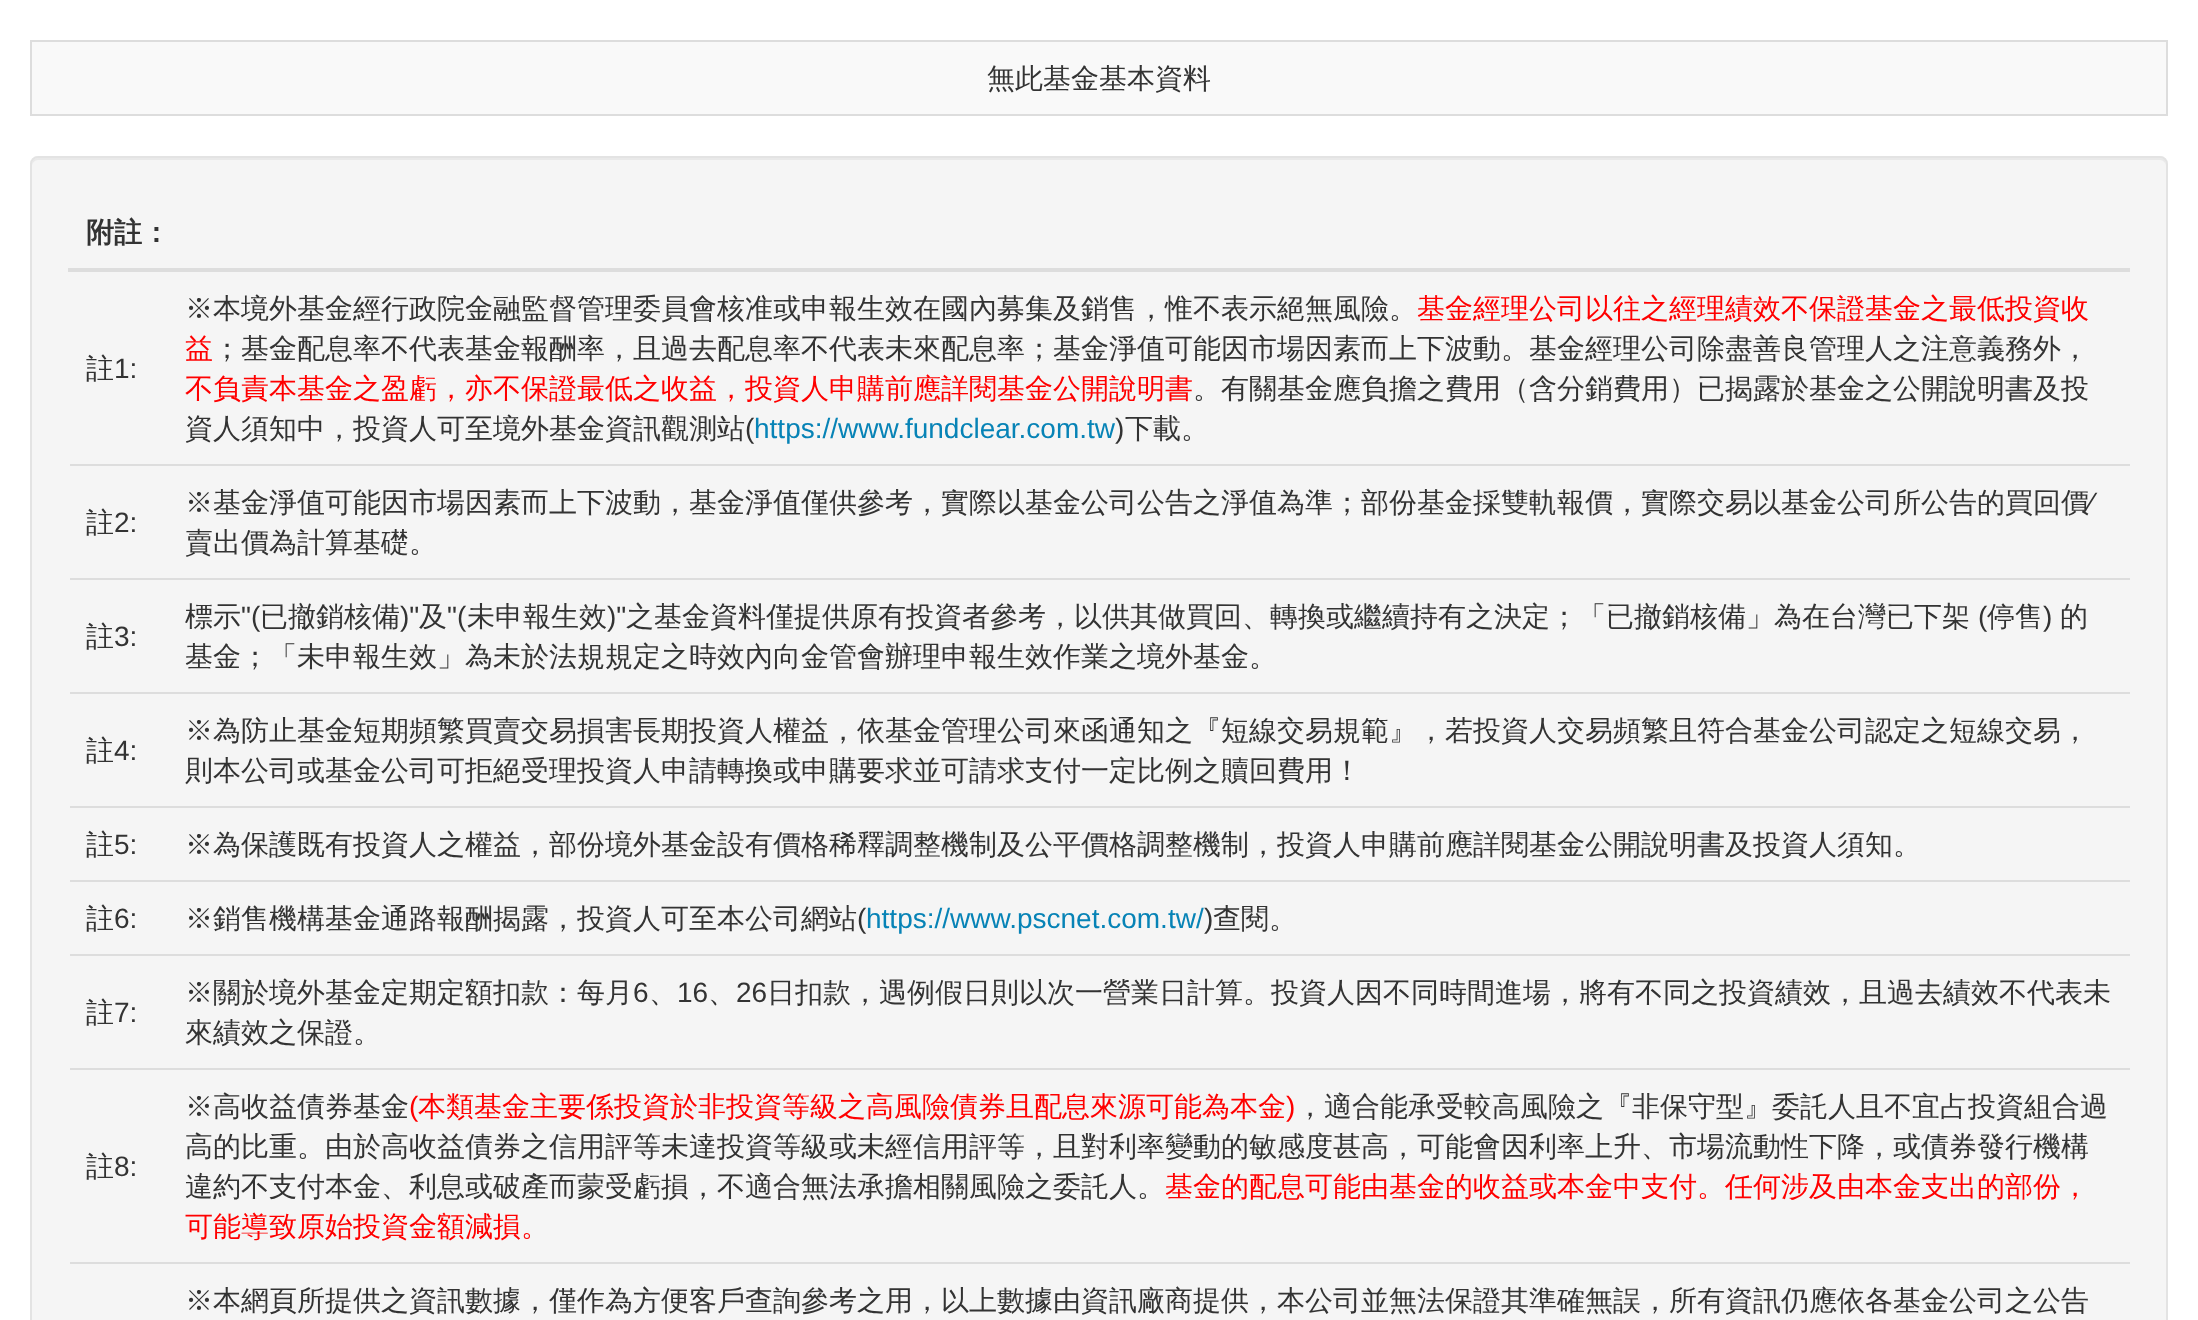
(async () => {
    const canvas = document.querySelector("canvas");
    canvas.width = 2198;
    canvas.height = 1320;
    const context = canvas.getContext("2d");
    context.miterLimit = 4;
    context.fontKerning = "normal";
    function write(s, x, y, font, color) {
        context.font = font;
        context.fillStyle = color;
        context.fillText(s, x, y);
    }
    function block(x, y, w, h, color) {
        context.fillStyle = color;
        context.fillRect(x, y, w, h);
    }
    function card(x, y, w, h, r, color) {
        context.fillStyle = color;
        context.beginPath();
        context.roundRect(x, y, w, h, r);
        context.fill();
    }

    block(0, 0, 2198, 1320, "rgb(255, 255, 255)");
    block(30, 40, 2138, 2, "rgb(221, 221, 221)");
    block(2166, 40, 2, 76, "rgb(221, 221, 221)");
    block(30, 114, 2138, 2, "rgb(221, 221, 221)");
    block(30, 40, 2, 76, "rgb(221, 221, 221)");
    block(32, 42, 2134, 72, "rgb(249, 249, 249)");
    write("無此基金基本資料", 987, 88, "500 28px WenQuanYi Zen Hei", "rgb(51, 51, 51)");
    card(30, 156, 2138, 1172, 8, "rgb(245, 245, 245)");
    context.fillStyle = "rgb(233, 233, 233)";
    context.beginPath();
    context.moveTo(38, 160);
    context.lineTo(2160, 160);
    context.bezierCurveTo(2163, 160, 2166, 163, 2166, 166);
    context.bezierCurveTo(2166, 162, 2165, 158, 2160, 158);
    context.lineTo(38, 158);
    context.bezierCurveTo(33, 158, 32, 162, 32, 166);
    context.bezierCurveTo(32, 163, 35, 160, 38, 160);
    context.closePath();
    context.fill();
    context.beginPath();
    context.roundRect(31, 157, 2136, 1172, 7);
    context.strokeStyle = "rgb(227, 227, 227)";
    context.lineWidth = 2;
    context.stroke();
    block(68, 268, 2062, 4, "rgb(221, 221, 221)");
    write("附註：", 86, 242, "bold 28px WenQuanYi Zen Hei", "rgb(51, 51, 51)");
    write("註", 86, 378, "500 28px WenQuanYi Zen Hei", "rgb(51, 51, 51)");
    write("1:", 114, 378, "28px Liberation Sans", "rgb(51, 51, 51)");
    write("※本境外基金經行政院金融監督管理委員會核准或申報生效在國內募集及銷售，惟不表示絕無風險。", 185, 318, "500 28px WenQuanYi Zen Hei", "rgb(51, 51, 51)");
    write("基金經理公司以往之經理績效不保證基金之最低投資收", 1417, 318, "500 28px WenQuanYi Zen Hei", "rgb(255, 0, 0)");
    write("益", 185, 358, "500 28px WenQuanYi Zen Hei", "rgb(255, 0, 0)");
    write("；基金配息率不代表基金報酬率，且過去配息率不代表未來配息率；基金淨值可能因市場因素而上下波動。基金經理公司除盡善良管理人之注意義務外，", 213, 358, "500 28px WenQuanYi Zen Hei", "rgb(51, 51, 51)");
    write("不負責本基金之盈虧，亦不保證最低之收益，投資人申購前應詳閱基金公開說明書", 185, 398, "500 28px WenQuanYi Zen Hei", "rgb(255, 0, 0)");
    write("。有關基金應負擔之費用（含分銷費用）已揭露於基金之公開說明書及投", 1193, 398, "500 28px WenQuanYi Zen Hei", "rgb(51, 51, 51)");
    write("資人須知中，投資人可至境外基金資訊觀測站", 185, 438, "500 28px WenQuanYi Zen Hei", "rgb(51, 51, 51)");
    write("(", 745, 438, "28px Liberation Sans", "rgb(51, 51, 51)");
    write("https://www.fundclear.com.tw", 754, 438, "28px Liberation Sans", "rgb(7, 131, 182)");
    write(")", 1115, 438, "28px Liberation Sans", "rgb(51, 51, 51)");
    write("下載。", 1125, 438, "500 28px WenQuanYi Zen Hei", "rgb(51, 51, 51)");
    write("註", 86, 532, "500 28px WenQuanYi Zen Hei", "rgb(51, 51, 51)");
    write("2:", 114, 532, "28px Liberation Sans", "rgb(51, 51, 51)");
    block(70, 464, 2060, 2, "rgb(221, 221, 221)");
    write("※基金淨值可能因市場因素而上下波動，基金淨值僅供參考，實際以基金公司公告之淨值為準；部份基金採雙軌報價，實際交易以基金公司所公告的買回價", 185, 512, "500 28px WenQuanYi Zen Hei", "rgb(51, 51, 51)");
    write("∕", 2089, 512, "28px Liberation Sans", "rgb(51, 51, 51)");
    write("賣出價為計算基礎。", 185, 552, "500 28px WenQuanYi Zen Hei", "rgb(51, 51, 51)");
    write("註", 86, 646, "500 28px WenQuanYi Zen Hei", "rgb(51, 51, 51)");
    write("3:", 114, 646, "28px Liberation Sans", "rgb(51, 51, 51)");
    block(70, 578, 2060, 2, "rgb(221, 221, 221)");
    write("標示", 185, 626, "500 28px WenQuanYi Zen Hei", "rgb(51, 51, 51)");
    write("\"(", 241, 626, "28px Liberation Sans", "rgb(51, 51, 51)");
    write("已撤銷核備", 260, 626, "500 28px WenQuanYi Zen Hei", "rgb(51, 51, 51)");
    write(")\"", 400, 626, "28px Liberation Sans", "rgb(51, 51, 51)");
    write("及", 419, 626, "500 28px WenQuanYi Zen Hei", "rgb(51, 51, 51)");
    write("\"(", 447, 626, "28px Liberation Sans", "rgb(51, 51, 51)");
    write("未申報生效", 467, 626, "500 28px WenQuanYi Zen Hei", "rgb(51, 51, 51)");
    write(")\"", 607, 626, "28px Liberation Sans", "rgb(51, 51, 51)");
    write("之基金資料僅提供原有投資者參考，以供其做買回、轉換或繼續持有之決定；「已撤銷核備」為在台灣已下架", 626, 626, "500 28px WenQuanYi Zen Hei", "rgb(51, 51, 51)");
    write("(", 1978, 626, "28px Liberation Sans", "rgb(51, 51, 51)");
    write("停售", 1987, 626, "500 28px WenQuanYi Zen Hei", "rgb(51, 51, 51)");
    write(")", 2043, 626, "28px Liberation Sans", "rgb(51, 51, 51)");
    write("的", 2060, 626, "500 28px WenQuanYi Zen Hei", "rgb(51, 51, 51)");
    write("基金；「未申報生效」為未於法規規定之時效內向金管會辦理申報生效作業之境外基金。", 185, 666, "500 28px WenQuanYi Zen Hei", "rgb(51, 51, 51)");
    write("註", 86, 760, "500 28px WenQuanYi Zen Hei", "rgb(51, 51, 51)");
    write("4:", 114, 760, "28px Liberation Sans", "rgb(51, 51, 51)");
    block(70, 692, 2060, 2, "rgb(221, 221, 221)");
    write("※為防止基金短期頻繁買賣交易損害長期投資人權益，依基金管理公司來函通知之『短線交易規範』，若投資人交易頻繁且符合基金公司認定之短線交易，", 185, 740, "500 28px WenQuanYi Zen Hei", "rgb(51, 51, 51)");
    write("則本公司或基金公司可拒絕受理投資人申請轉換或申購要求並可請求支付一定比例之贖回費用！", 185, 780, "500 28px WenQuanYi Zen Hei", "rgb(51, 51, 51)");
    write("註", 86, 854, "500 28px WenQuanYi Zen Hei", "rgb(51, 51, 51)");
    write("5:", 114, 854, "28px Liberation Sans", "rgb(51, 51, 51)");
    block(70, 806, 2060, 2, "rgb(221, 221, 221)");
    write("※為保護既有投資人之權益，部份境外基金設有價格稀釋調整機制及公平價格調整機制，投資人申購前應詳閱基金公開說明書及投資人須知。", 185, 854, "500 28px WenQuanYi Zen Hei", "rgb(51, 51, 51)");
    write("註", 86, 928, "500 28px WenQuanYi Zen Hei", "rgb(51, 51, 51)");
    write("6:", 114, 928, "28px Liberation Sans", "rgb(51, 51, 51)");
    block(70, 880, 2060, 2, "rgb(221, 221, 221)");
    write("※銷售機構基金通路報酬揭露，投資人可至本公司網站", 185, 928, "500 28px WenQuanYi Zen Hei", "rgb(51, 51, 51)");
    write("(", 857, 928, "28px Liberation Sans", "rgb(51, 51, 51)");
    write("https://www.pscnet.com.tw/", 866, 928, "28px Liberation Sans", "rgb(7, 131, 182)");
    write(")", 1204, 928, "28px Liberation Sans", "rgb(51, 51, 51)");
    write("查閱。", 1213, 928, "500 28px WenQuanYi Zen Hei", "rgb(51, 51, 51)");
    write("註", 86, 1022, "500 28px WenQuanYi Zen Hei", "rgb(51, 51, 51)");
    write("7:", 114, 1022, "28px Liberation Sans", "rgb(51, 51, 51)");
    block(70, 954, 2060, 2, "rgb(221, 221, 221)");
    write("※關於境外基金定期定額扣款：每月", 185, 1002, "500 28px WenQuanYi Zen Hei", "rgb(51, 51, 51)");
    write("6", 633, 1002, "28px Liberation Sans", "rgb(51, 51, 51)");
    write("、", 649, 1002, "500 28px WenQuanYi Zen Hei", "rgb(51, 51, 51)");
    write("16", 677, 1002, "28px Liberation Sans", "rgb(51, 51, 51)");
    write("、", 708, 1002, "500 28px WenQuanYi Zen Hei", "rgb(51, 51, 51)");
    write("26", 736, 1002, "28px Liberation Sans", "rgb(51, 51, 51)");
    write("日扣款，遇例假日則以次一營業日計算。投資人因不同時間進場，將有不同之投資績效，且過去績效不代表未", 767, 1002, "500 28px WenQuanYi Zen Hei", "rgb(51, 51, 51)");
    write("來績效之保證。", 185, 1042, "500 28px WenQuanYi Zen Hei", "rgb(51, 51, 51)");
    write("註", 86, 1176, "500 28px WenQuanYi Zen Hei", "rgb(51, 51, 51)");
    write("8:", 114, 1176, "28px Liberation Sans", "rgb(51, 51, 51)");
    block(70, 1068, 2060, 2, "rgb(221, 221, 221)");
    write("※高收益債券基金", 185, 1116, "500 28px WenQuanYi Zen Hei", "rgb(51, 51, 51)");
    write("(", 409, 1116, "28px Liberation Sans", "rgb(255, 0, 0)");
    write("本類基金主要係投資於非投資等級之高風險債券且配息來源可能為本金", 418, 1116, "500 28px WenQuanYi Zen Hei", "rgb(255, 0, 0)");
    write(")", 1286, 1116, "28px Liberation Sans", "rgb(255, 0, 0)");
    write("，適合能承受較高風險之『非保守型』委託人且不宜占投資組合過", 1296, 1116, "500 28px WenQuanYi Zen Hei", "rgb(51, 51, 51)");
    write("高的比重。由於高收益債券之信用評等未達投資等級或未經信用評等，且對利率變動的敏感度甚高，可能會因利率上升、市場流動性下降，或債券發行機構", 185, 1156, "500 28px WenQuanYi Zen Hei", "rgb(51, 51, 51)");
    write("違約不支付本金、利息或破產而蒙受虧損，不適合無法承擔相關風險之委託人。", 185, 1196, "500 28px WenQuanYi Zen Hei", "rgb(51, 51, 51)");
    write("基金的配息可能由基金的收益或本金中支付。任何涉及由本金支出的部份，", 1165, 1196, "500 28px WenQuanYi Zen Hei", "rgb(255, 0, 0)");
    write("可能導致原始投資金額減損。", 185, 1236, "500 28px WenQuanYi Zen Hei", "rgb(255, 0, 0)");
    block(70, 1262, 2060, 2, "rgb(221, 221, 221)");
    write("※本網頁所提供之資訊數據，僅作為方便客戶查詢參考之用，以上數據由資訊廠商提供，本公司並無法保證其準確無誤，所有資訊仍應依各基金公司之公告", 185, 1310, "500 28px WenQuanYi Zen Hei", "rgb(51, 51, 51)");
})();
